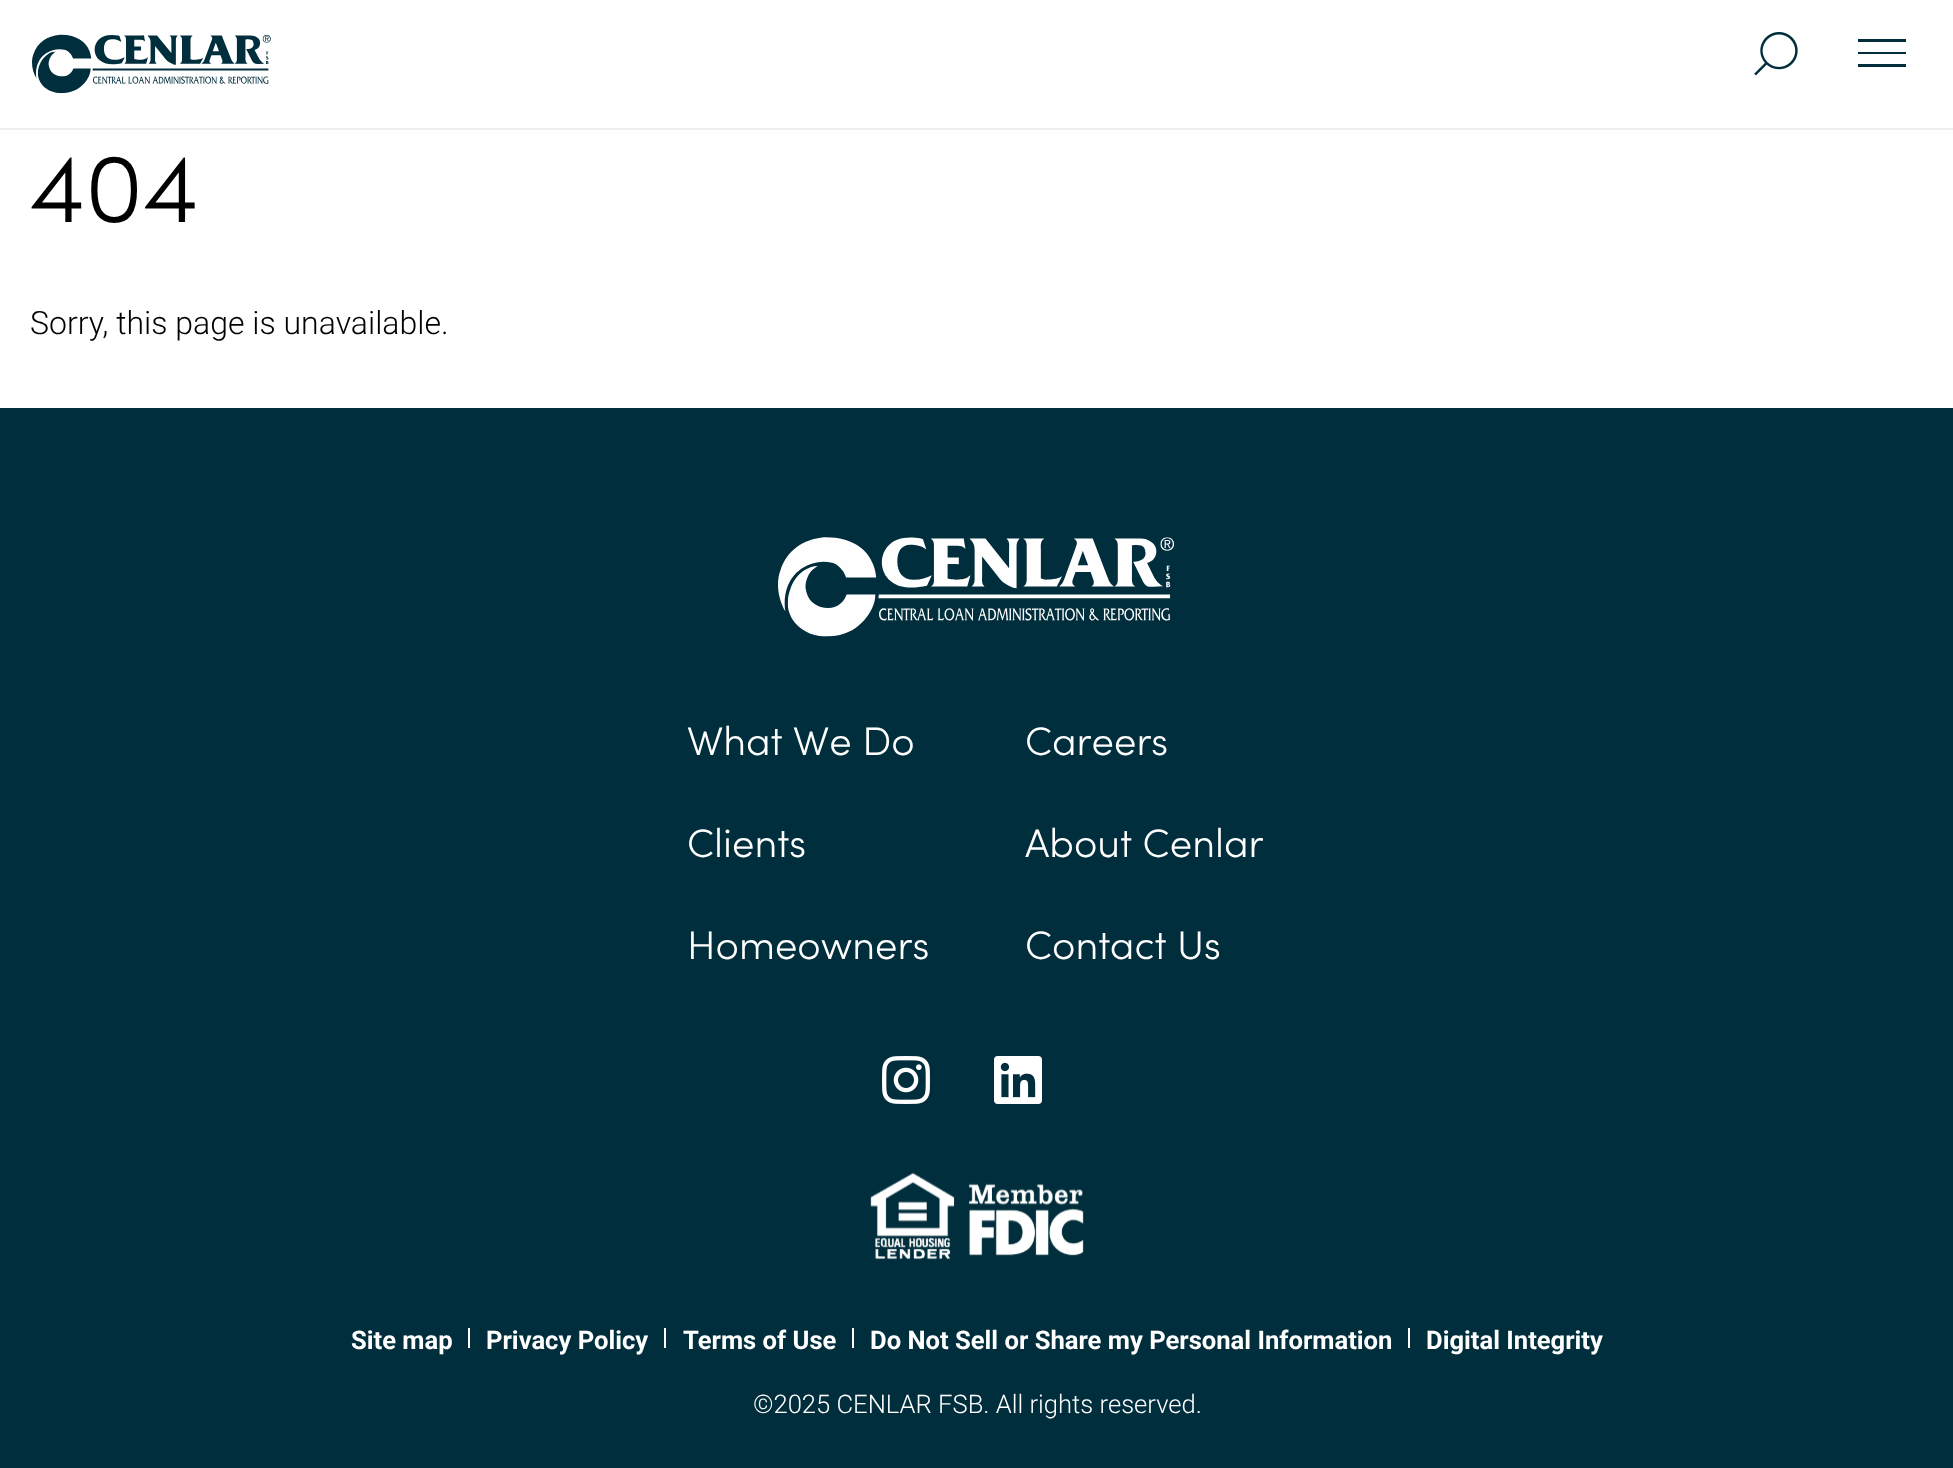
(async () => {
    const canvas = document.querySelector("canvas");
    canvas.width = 1953;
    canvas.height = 1468;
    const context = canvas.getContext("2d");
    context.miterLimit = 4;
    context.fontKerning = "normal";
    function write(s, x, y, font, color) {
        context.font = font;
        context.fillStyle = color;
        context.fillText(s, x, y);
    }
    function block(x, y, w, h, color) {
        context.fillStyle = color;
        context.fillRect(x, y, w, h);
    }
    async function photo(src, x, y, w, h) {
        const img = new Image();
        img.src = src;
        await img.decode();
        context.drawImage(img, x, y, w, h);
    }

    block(0, 0, 1953, 1468, "rgb(255, 255, 255)");
    block(0, 128, 1953, 2, "rgb(236, 239, 242)");
    await photo("media/1.png", 32, 34, 239, 60);
    await photo("media/2.png", 1754, 32, 44, 44);
    context.fillStyle = "rgb(0, 46, 60)";
    context.beginPath();
    context.moveTo(1906, 64);
    context.lineTo(1906, 67);
    context.lineTo(1858, 67);
    context.lineTo(1858, 64);
    context.closePath();
    context.moveTo(1906, 52);
    context.lineTo(1906, 54);
    context.lineTo(1858, 54);
    context.lineTo(1858, 52);
    context.closePath();
    context.moveTo(1906, 39);
    context.lineTo(1906, 42);
    context.lineTo(1858, 42);
    context.lineTo(1858, 39);
    context.closePath();
    context.fill();
    write("404", 30, 222, "300 98px Sofia", "rgb(0, 0, 0)");
    write("Sorry, this page is unavailable.", 30, 334, "300 32px Roboto", "rgb(0, 0, 0)");
    block(0, 408, 1953, 1060, "rgb(0, 46, 60)");
    write("What We Do", 687, 755, "300 40px Sofia", "rgb(255, 255, 255)");
    write("Careers", 1025, 755, "300 40px Sofia", "rgb(255, 255, 255)");
    write("Clients", 687, 857, "300 40px Sofia", "rgb(255, 255, 255)");
    write("About Cenlar", 1025, 857, "300 40px Sofia", "rgb(255, 255, 255)");
    write("Homeowners", 687, 959, "300 40px Sofia", "rgb(255, 255, 255)");
    write("Contact Us", 1025, 959, "300 40px Sofia", "rgb(255, 255, 255)");
    await photo("media/3.png", 882, 1056, 48, 48);
    await photo("media/4.png", 994, 1056, 48, 48);
    await photo("media/5.png", 870, 1172, 214, 88);
    write("Site map", 351, 1349, "bold 25.6px Roboto", "rgb(255, 255, 255)");
    block(468, 1328, 2, 20, "rgb(255, 255, 255)");
    write("Privacy Policy", 486, 1349, "bold 25.6px Roboto", "rgb(255, 255, 255)");
    block(664, 1328, 2, 20, "rgb(255, 255, 255)");
    write("Terms of Use", 683, 1349, "bold 25.6px Roboto", "rgb(255, 255, 255)");
    block(852, 1328, 2, 20, "rgb(255, 255, 255)");
    write("Do Not Sell or Share my Personal Information", 870, 1349, "bold 25.6px Roboto", "rgb(255, 255, 255)");
    block(1408, 1328, 2, 20, "rgb(255, 255, 255)");
    write("Digital Integrity", 1426, 1349, "bold 25.6px Roboto", "rgb(255, 255, 255)");
    await photo("media/6.png", 778, 537, 396, 100);
    write("©2025 CENLAR FSB. All rights reserved.", 753, 1413, "300 25.6px Roboto", "rgb(255, 255, 255)");
})();
